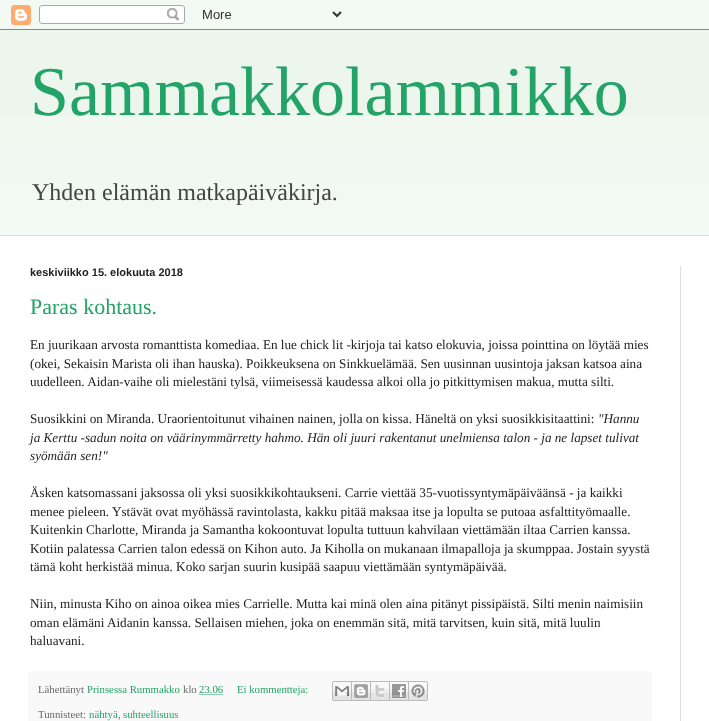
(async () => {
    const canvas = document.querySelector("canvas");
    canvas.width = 709;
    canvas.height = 721;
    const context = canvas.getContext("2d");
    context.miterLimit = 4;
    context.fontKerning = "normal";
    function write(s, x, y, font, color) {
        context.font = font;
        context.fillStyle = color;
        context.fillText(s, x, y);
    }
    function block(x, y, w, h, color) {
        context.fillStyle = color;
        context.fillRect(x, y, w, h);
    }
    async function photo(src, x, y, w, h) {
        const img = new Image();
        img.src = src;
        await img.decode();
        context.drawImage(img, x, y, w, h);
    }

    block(0, 0, 709, 721, "rgb(236, 246, 236)");
    await photo("media/1.png", 0, 0, 709, 30);
    write("Sammakkolammikko", 30, 115, "70px Liberation Serif", "rgb(35, 163, 103)");
    await photo("media/7.png", 0, 116, 709, 119);
    write("Yhden elämän matkapäiväkirja.", 32, 200, "24px Liberation Serif", "rgb(68, 68, 68)");
    block(0, 236, 709, 485, "rgb(255, 255, 255)");
    block(0, 235, 709, 1, "rgb(221, 221, 221)");
    write("keskiviikko 15. elokuuta 2018", 30, 276, "bold 11px Liberation Sans", "rgb(34, 34, 34)");
    write("Paras kohtaus.", 30, 314, "22px Liberation Serif", "rgb(35, 163, 103)");
    write("En juurikaan arvosta romanttista komediaa. En lue chick lit -kirjoja tai katso elokuvia, joissa pointtina on löytää mies", 30, 349, "13.2px Liberation Serif", "rgb(34, 34, 34)");
    write("(okei, Sekaisin Marista oli ihan hauska). Poikkeuksena on Sinkkuelämää. Sen uusinnan uusintoja jaksan katsoa aina", 30, 368, "13.2px Liberation Serif", "rgb(34, 34, 34)");
    write("uudelleen. Aidan-vaihe oli mielestäni tylsä, viimeisessä kaudessa alkoi olla jo pitkittymisen makua, mutta silti.", 30, 386, "13.2px Liberation Serif", "rgb(34, 34, 34)");
    write("Suosikkini on Miranda. Uraorientoitunut vihainen nainen, jolla on kissa. Häneltä on yksi suosikkisitaattini:", 30, 423, "13.2px Liberation Serif", "rgb(34, 34, 34)");
    write("\"Hannu", 598, 423, "italic 13.2px Liberation Serif", "rgb(34, 34, 34)");
    write("ja Kerttu -sadun noita on väärinymmärretty hahmo. Hän oli juuri rakentanut unelmiensa talon - ja ne lapset tulivat", 30, 442, "italic 13.2px Liberation Serif", "rgb(34, 34, 34)");
    write("syömään sen!\"", 30, 460, "italic 13.2px Liberation Serif", "rgb(34, 34, 34)");
    write("Äsken katsomassani jaksossa oli yksi suosikkikohtaukseni. Carrie viettää 35-vuotissyntymäpäiväänsä - ja kaikki", 30, 497, "13.2px Liberation Serif", "rgb(34, 34, 34)");
    write("menee pieleen. Ystävät ovat myöhässä ravintolasta, kakku pitää maksaa itse ja lopulta se putoaa asfalttityömaalle.", 30, 516, "13.2px Liberation Serif", "rgb(34, 34, 34)");
    write("Kuitenkin Charlotte, Miranda ja Samantha kokoontuvat lopulta tuttuun kahvilaan viettämään iltaa Carrien kanssa.", 30, 534, "13.2px Liberation Serif", "rgb(34, 34, 34)");
    write("Kotiin palatessa Carrien talon edessä on Kihon auto. Ja Kiholla on mukanaan ilmapalloja ja skumppaa. Jostain syystä", 30, 553, "13.2px Liberation Serif", "rgb(34, 34, 34)");
    write("tämä koht herkistää minua. Koko sarjan suurin kusipää saapuu viettämään syntymäpäivää.", 30, 571, "13.2px Liberation Serif", "rgb(34, 34, 34)");
    write("Niin, minusta Kiho on ainoa oikea mies Carrielle. Mutta kai minä olen aina pitänyt pissipäistä. Silti menin naimisiin", 30, 608, "13.2px Liberation Serif", "rgb(34, 34, 34)");
    write("oman elämäni Aidanin kanssa. Sellaisen miehen, joka on enemmän sitä, mitä tarvitsen, kuin sitä, mitä luulin", 30, 627, "13.2px Liberation Serif", "rgb(34, 34, 34)");
    write("haluavani.", 30, 645, "13.2px Liberation Serif", "rgb(34, 34, 34)");
    block(28, 671, 624, 50, "rgb(249, 249, 249)");
    write("Lähettänyt", 38, 693, "10.75px Liberation Serif", "rgb(102, 102, 102)");
    write("Prinsessa Rummakko", 87, 693, "10.75px Liberation Serif", "rgb(35, 163, 103)");
    write("klo", 183, 693, "10.75px Liberation Serif", "rgb(102, 102, 102)");
    write("23.06", 199, 693, "10.75px Liberation Serif", "rgb(35, 163, 103)");
    context.beginPath();
    context.moveTo(199.5, 694.5);
    context.lineTo(223.5, 694.5);
    context.strokeStyle = "rgb(35, 163, 103)";
    context.setLineDash([1, 1]);
    context.stroke();
    write("Ei kommentteja:", 237, 693, "10.75px Liberation Serif", "rgb(35, 163, 103)");
    await photo("media/2.png", 332, 681, 20, 20);
    await photo("media/3.png", 352, 681, 19, 20);
    await photo("media/4.png", 371, 681, 19, 20);
    await photo("media/5.png", 390, 681, 19, 20);
    await photo("media/6.png", 409, 681, 19, 20);
    write("Tunnisteet:", 38, 718, "10.75px Liberation Serif", "rgb(102, 102, 102)");
    write("nähtyä", 89, 718, "10.75px Liberation Serif", "rgb(35, 163, 103)");
    write(",", 118, 718, "10.75px Liberation Serif", "rgb(102, 102, 102)");
    write("suhteellisuus", 123, 718, "10.75px Liberation Serif", "rgb(35, 163, 103)");
    block(680, 266, 1, 455, "rgb(221, 221, 221)");
})();
